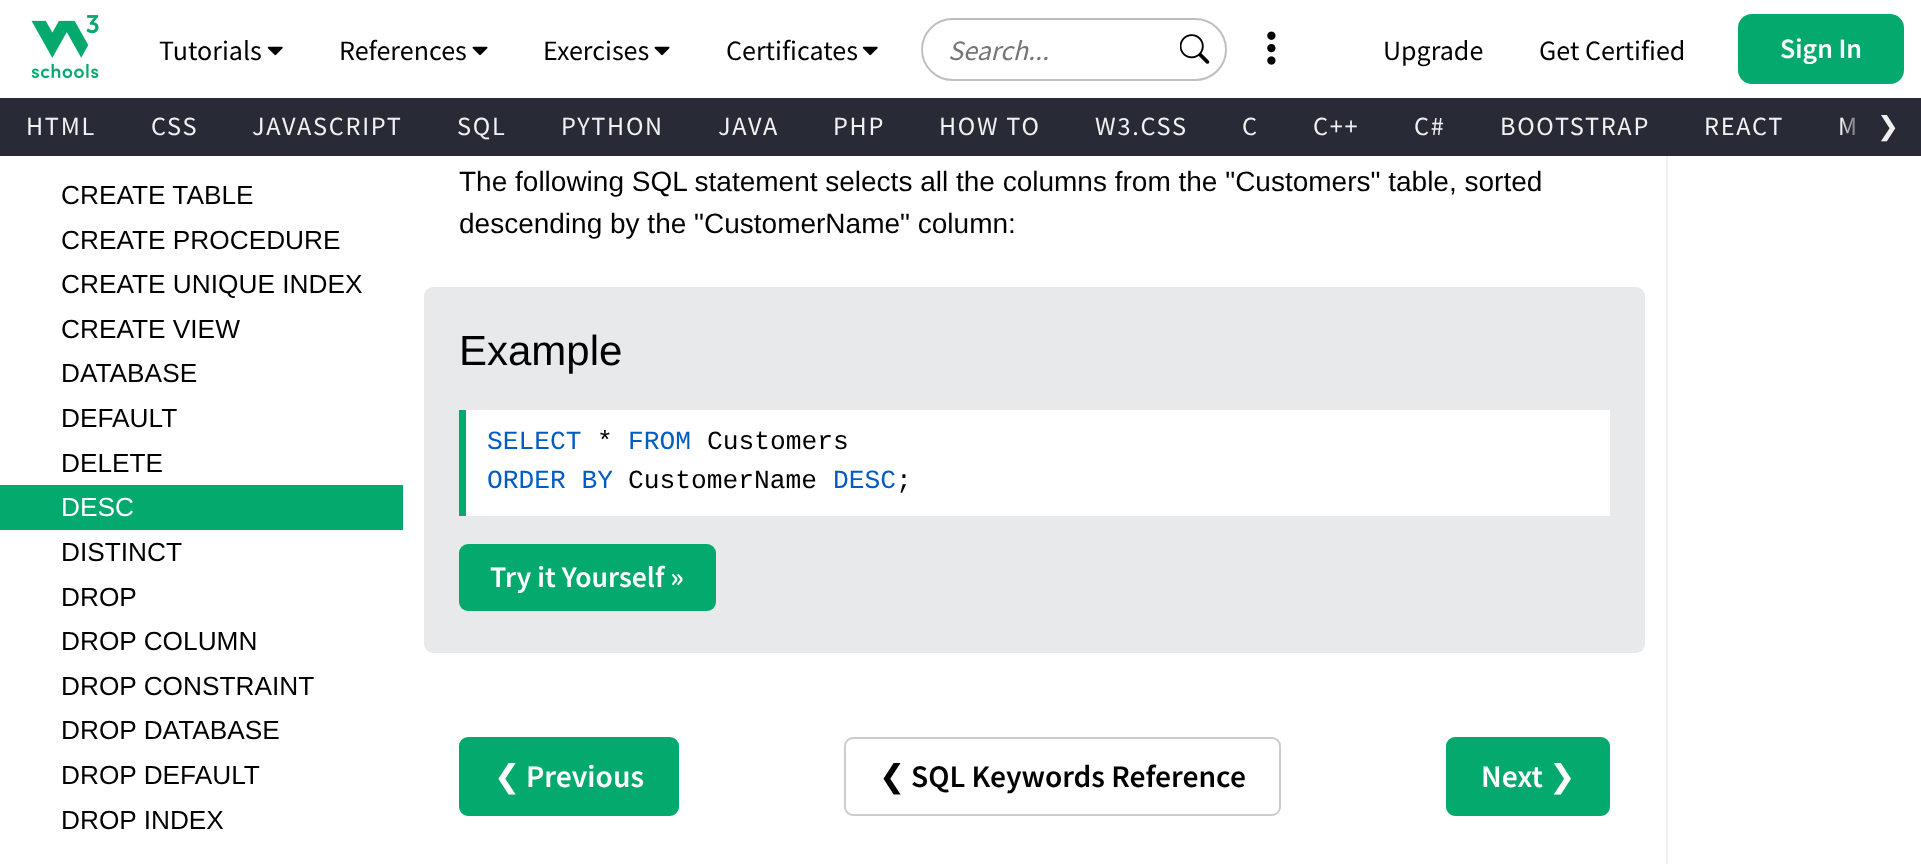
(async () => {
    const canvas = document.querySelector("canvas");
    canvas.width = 1921;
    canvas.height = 864;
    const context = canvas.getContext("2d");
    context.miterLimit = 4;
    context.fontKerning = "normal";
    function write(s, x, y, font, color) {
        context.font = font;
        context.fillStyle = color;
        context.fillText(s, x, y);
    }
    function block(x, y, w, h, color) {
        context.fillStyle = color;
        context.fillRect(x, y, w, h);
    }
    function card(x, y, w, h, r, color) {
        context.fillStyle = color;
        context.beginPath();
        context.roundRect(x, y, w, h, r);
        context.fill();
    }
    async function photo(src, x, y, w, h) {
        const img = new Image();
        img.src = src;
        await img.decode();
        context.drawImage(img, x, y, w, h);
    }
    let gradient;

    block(0, 0, 1921, 864, "rgb(255, 255, 255)");
    await photo("media/1.png", 31, 15, 68, 64);
    write("Tutorials", 159, 60, "28px Source Sans Pro", "rgb(0, 0, 0)");
    await photo("media/2.png", 267, 46, 16, 10);
    write("References", 339, 60, "28px Source Sans Pro", "rgb(0, 0, 0)");
    await photo("media/3.png", 472, 46, 16, 10);
    write("Exercises", 543, 60, "28px Source Sans Pro", "rgb(0, 0, 0)");
    await photo("media/3.png", 654, 46, 16, 10);
    write("Certificates", 726, 60, "28px Source Sans Pro", "rgb(0, 0, 0)");
    await photo("media/2.png", 862, 46, 16, 10);
    context.beginPath();
    context.roundRect(922, 19, 304, 61, 30.5);
    context.strokeStyle = "rgb(191, 191, 191)";
    context.lineWidth = 2;
    context.stroke();
    write("Search...", 948, 60, "italic 28px Source Sans Pro", "rgb(117, 117, 117)");
    await photo("media/4.png", 1180, 34, 30, 30);
    await photo("media/5.png", 1267, 31, 9, 34);
    write("Upgrade", 1383, 60, "28px Source Sans Pro", "rgb(0, 0, 0)");
    write("Get Certified", 1539, 60, "28px Source Sans Pro", "rgb(0, 0, 0)");
    card(1738, 14, 166, 70, 14, "rgb(4, 170, 109)");
    write("Sign In", 1780, 58, "600 28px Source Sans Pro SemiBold", "rgb(255, 255, 255)");
    block(0, 98, 1865, 58, "rgb(40, 42, 53)");
    context.letterSpacing = "1.75px";
    write("HTML", 26, 135, "26.25px Source Sans Pro", "rgb(241, 241, 241)");
    write("CSS", 151, 135, "26.25px Source Sans Pro", "rgb(241, 241, 241)");
    write("JAVASCRIPT", 252, 135, "26.25px Source Sans Pro", "rgb(241, 241, 241)");
    write("SQL", 457, 135, "26.25px Source Sans Pro", "rgb(241, 241, 241)");
    write("PYTHON", 561, 135, "26.25px Source Sans Pro", "rgb(241, 241, 241)");
    write("JAVA", 718, 135, "26.25px Source Sans Pro", "rgb(241, 241, 241)");
    write("PHP", 833, 135, "26.25px Source Sans Pro", "rgb(241, 241, 241)");
    write("HOW TO", 939, 135, "26.25px Source Sans Pro", "rgb(241, 241, 241)");
    write("W3.CSS", 1095, 135, "26.25px Source Sans Pro", "rgb(241, 241, 241)");
    write("C", 1242, 135, "26.25px Source Sans Pro", "rgb(241, 241, 241)");
    write("C++", 1313, 135, "26.25px Source Sans Pro", "rgb(241, 241, 241)");
    write("C#", 1414, 135, "26.25px Source Sans Pro", "rgb(241, 241, 241)");
    write("BOOTSTRAP", 1500, 135, "26.25px Source Sans Pro", "rgb(241, 241, 241)");
    write("REACT", 1704, 135, "26.25px Source Sans Pro", "rgb(241, 241, 241)");
    write("M", 1838, 135, "26.25px Source Sans Pro", "rgb(241, 241, 241)");
    gradient = context.createLinearGradient(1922, 127, 1841, 127);
    gradient.addColorStop(0.7, "rgb(40, 42, 53)");
    gradient.addColorStop(1, "rgba(40, 42, 53, 0)");
    context.fillStyle = gradient;
    context.fillRect(1842, 98, 79, 58);
    write("❯", 1877, 135, "26.25px DejaVu Sans", "rgb(241, 241, 241)");
    context.letterSpacing = "0px";
    write("CREATE TABLE", 61, 204, "26.25px Liberation Sans", "rgb(0, 0, 0)");
    write("CREATE PROCEDURE", 61, 249, "26.25px Liberation Sans", "rgb(0, 0, 0)");
    write("CREATE UNIQUE INDEX", 61, 293, "26.25px Liberation Sans", "rgb(0, 0, 0)");
    write("CREATE VIEW", 61, 338, "26.25px Liberation Sans", "rgb(0, 0, 0)");
    write("DATABASE", 61, 382, "26.25px Liberation Sans", "rgb(0, 0, 0)");
    write("DEFAULT", 61, 427, "26.25px Liberation Sans", "rgb(0, 0, 0)");
    write("DELETE", 61, 472, "26.25px Liberation Sans", "rgb(0, 0, 0)");
    block(0, 485, 403, 45, "rgb(4, 170, 109)");
    write("DESC", 61, 516, "26.25px Liberation Sans", "rgb(255, 255, 255)");
    write("DISTINCT", 61, 561, "26.25px Liberation Sans", "rgb(0, 0, 0)");
    write("DROP", 61, 606, "26.25px Liberation Sans", "rgb(0, 0, 0)");
    write("DROP COLUMN", 61, 650, "26.25px Liberation Sans", "rgb(0, 0, 0)");
    write("DROP CONSTRAINT", 61, 695, "26.25px Liberation Sans", "rgb(0, 0, 0)");
    write("DROP DATABASE", 61, 739, "26.25px Liberation Sans", "rgb(0, 0, 0)");
    write("DROP DEFAULT", 61, 784, "26.25px Liberation Sans", "rgb(0, 0, 0)");
    write("DROP INDEX", 61, 829, "26.25px Liberation Sans", "rgb(0, 0, 0)");
    block(1666, 156, 2, 708, "rgb(241, 241, 241)");
    write("The following SQL statement selects all the columns from the \"Customers\" table, sorted", 459, 191, "28px Liberation Sans", "rgb(0, 0, 0)");
    write("descending by the \"CustomerName\" column:", 459, 233, "28px Liberation Sans", "rgb(0, 0, 0)");
    card(424, 287, 1221, 366, 9, "rgb(231, 233, 235)");
    write("Example", 459, 365, "42px Liberation Sans", "rgb(0, 0, 0)");
    block(466, 410, 1144, 106, "rgb(255, 255, 255)");
    block(459, 410, 7, 106, "rgb(4, 170, 109)");
    write("SELECT", 487, 449, "26.25px Liberation Mono", "rgb(0, 92, 197)");
    write("*", 597, 449, "26.25px Liberation Mono", "rgb(0, 0, 0)");
    write("FROM", 628, 449, "26.25px Liberation Mono", "rgb(0, 92, 197)");
    write("Customers", 707, 449, "26.25px Liberation Mono", "rgb(0, 0, 0)");
    write("ORDER BY", 487, 488, "26.25px Liberation Mono", "rgb(0, 92, 197)");
    write("CustomerName", 628, 488, "26.25px Liberation Mono", "rgb(0, 0, 0)");
    write("DESC", 833, 488, "26.25px Liberation Mono", "rgb(0, 92, 197)");
    write(";", 896, 488, "26.25px Liberation Mono", "rgb(0, 0, 0)");
    card(459, 544, 257, 67, 9, "rgb(4, 170, 109)");
    write("Try it Yourself »", 490, 587, "600 29.75px Source Sans Pro SemiBold", "rgb(255, 255, 255)");
    context.fillStyle = "rgb(4, 170, 109)";
    context.beginPath();
    context.roundRect(460, 738, 218, 77, 8);
    context.fill();
    context.strokeStyle = "rgb(4, 170, 109)";
    context.stroke();
    write("❮", 494, 787, "31.5px DejaVu Sans", "rgb(255, 255, 255)");
    write("Previous", 526, 787, "600 31.5px Source Sans Pro SemiBold", "rgb(255, 255, 255)");
    context.beginPath();
    context.roundRect(845, 738, 435, 77, 8);
    context.strokeStyle = "rgb(204, 204, 204)";
    context.stroke();
    write("❮", 879, 787, "31.5px DejaVu Sans", "rgb(0, 0, 0)");
    write("SQL Keywords Reference", 911, 787, "600 31.5px Source Sans Pro SemiBold", "rgb(0, 0, 0)");
    context.fillStyle = "rgb(4, 170, 109)";
    context.beginPath();
    context.roundRect(1447, 738, 162, 77, 8);
    context.fill();
    context.strokeStyle = "rgb(4, 170, 109)";
    context.stroke();
    write("Next", 1481, 787, "600 31.5px Source Sans Pro SemiBold", "rgb(255, 255, 255)");
    write("❯", 1549, 787, "31.5px DejaVu Sans", "rgb(255, 255, 255)");
})();
